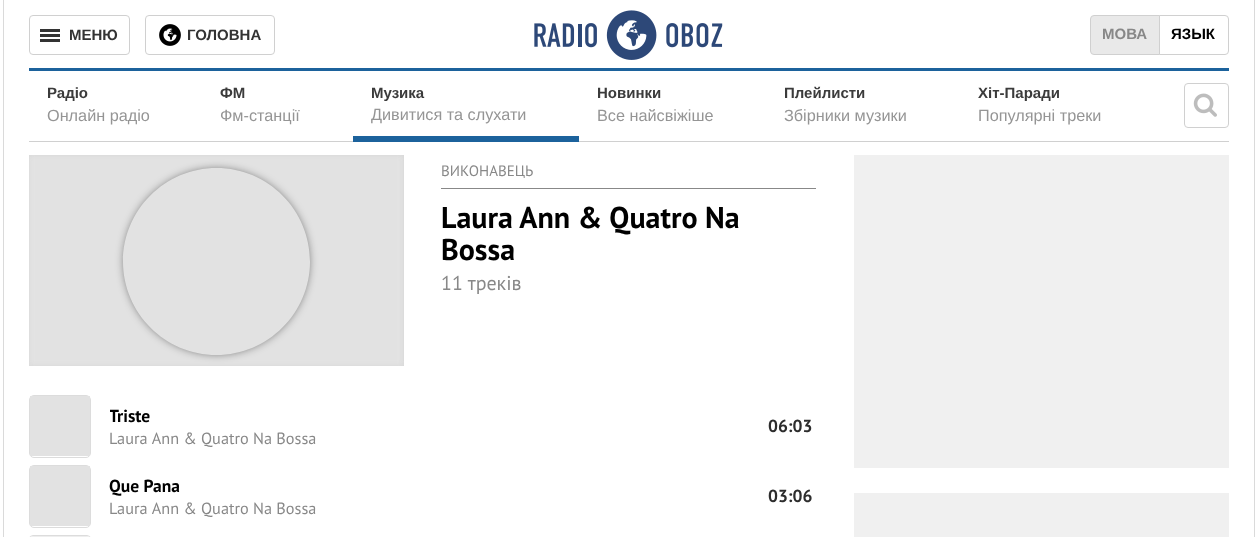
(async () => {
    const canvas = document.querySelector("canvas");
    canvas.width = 1256;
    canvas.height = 537;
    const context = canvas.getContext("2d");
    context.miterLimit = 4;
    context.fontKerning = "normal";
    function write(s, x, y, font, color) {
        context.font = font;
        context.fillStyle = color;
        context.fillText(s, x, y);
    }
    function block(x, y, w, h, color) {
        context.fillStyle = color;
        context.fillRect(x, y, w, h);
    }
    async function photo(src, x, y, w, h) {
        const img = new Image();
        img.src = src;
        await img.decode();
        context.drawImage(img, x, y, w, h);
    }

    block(0, 0, 1256, 537, "rgb(255, 255, 255)");
    block(29, 68, 1200, 3, "rgb(28, 98, 156)");
    block(3, 0, 1, 537, "rgb(218, 218, 218)");
    context.beginPath();
    context.roundRect(29.5, 15.5, 100, 39, 3.5);
    context.strokeStyle = "rgb(208, 208, 208)";
    context.stroke();
    block(40, 29, 20, 3, "rgb(51, 51, 51)");
    block(40, 39, 20, 3, "rgb(51, 51, 51)");
    write("МЕНЮ", 69, 40, "bold 15px Liberation Sans", "rgb(51, 51, 51)");
    block(40, 34, 20, 3, "rgb(51, 51, 51)");
    context.beginPath();
    context.roundRect(145.5, 15.5, 129, 39, 3.5);
    context.stroke();
    await photo("media/1.png", 159, 24, 22, 22);
    write("ГОЛОВНА", 187, 40, "bold 15px Liberation Sans", "rgb(51, 51, 51)");
    await photo("media/2.png", 534, 10, 189, 50);
    context.fillStyle = "rgb(233, 233, 233)";
    context.beginPath();
    context.roundRect(1090.5, 15.5, 69, 39, [3.5, 0, 0, 3.5]);
    context.fill();
    context.stroke();
    write("МОВА", 1102, 39, "bold 15px Liberation Sans", "rgb(136, 136, 136)");
    context.fillStyle = "rgb(255, 255, 255)";
    context.beginPath();
    context.roundRect(1159.5, 15.5, 69, 39, [0, 3.5, 3.5, 0]);
    context.fill();
    context.stroke();
    write("ЯЗЫК", 1171, 39, "bold 15px Liberation Sans", "rgb(0, 0, 0)");
    block(1254, 0, 1, 537, "rgb(218, 218, 218)");
    block(29, 141, 1200, 1, "rgb(208, 208, 208)");
    write("Радіо", 47, 98, "bold 15px Liberation Sans", "rgb(59, 59, 59)");
    write("Онлайн радіо", 47, 121, "16.25px Liberation Sans", "rgb(149, 149, 149)");
    write("ФМ", 220, 98, "bold 15px Liberation Sans", "rgb(59, 59, 59)");
    write("Фм-станції", 220, 121, "16.25px Liberation Sans", "rgb(149, 149, 149)");
    block(353, 136, 226, 6, "rgb(28, 98, 156)");
    write("Музика", 371, 98, "bold 15px Liberation Sans", "rgb(59, 59, 59)");
    write("Дивитися та слухати", 371, 120, "16.25px Liberation Sans", "rgb(149, 149, 149)");
    write("Новинки", 597, 98, "bold 15px Liberation Sans", "rgb(59, 59, 59)");
    write("Все найсвіжіше", 597, 121, "16.25px Liberation Sans", "rgb(149, 149, 149)");
    write("Плейлисти", 784, 98, "bold 15px Liberation Sans", "rgb(59, 59, 59)");
    write("Збірники музики", 784, 121, "16.25px Liberation Sans", "rgb(149, 149, 149)");
    write("Хіт-Паради", 978, 98, "bold 15px Liberation Sans", "rgb(59, 59, 59)");
    write("Популярні треки", 978, 121, "16.25px Liberation Sans", "rgb(149, 149, 149)");
    context.beginPath();
    context.roundRect(1184.5, 83.5, 44, 44, 3.5);
    context.stroke();
    await photo("media/3.png", 1193, 93, 24, 24);
    block(29, 155, 375, 211, "rgb(216, 216, 216)");
    await photo("media/4.png", 29, 155, 375, 211);
    context.save();
    context.beginPath();
    context.moveTo(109, 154);
    context.lineTo(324, 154);
    context.lineTo(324, 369);
    context.lineTo(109, 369);
    context.closePath();
    context.moveTo(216.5, 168);
    context.bezierCurveTo(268, 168, 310, 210, 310, 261.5);
    context.bezierCurveTo(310, 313, 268, 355, 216.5, 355);
    context.bezierCurveTo(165, 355, 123, 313, 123, 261.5);
    context.bezierCurveTo(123, 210, 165, 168, 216.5, 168);
    context.closePath();
    context.clip("evenodd");
    context.fillStyle = "rgba(0, 0, 0, 0.6)";
    context.filter = "blur(5px)";
    context.beginPath();
    context.roundRect(125, 170, 183, 183, 91.5);
    context.fill();
    context.filter = "none";
    context.restore();
    block(441, 188, 375, 1, "rgb(136, 136, 136)");
    write("ВИКОНАВЕЦЬ", 441, 176, "15px PT Sans", "rgb(136, 136, 136)");
    write("Laura Ann & Quatro Na", 441, 228, "bold 30px PT Sans", "rgb(0, 0, 0)");
    write("Bossa", 441, 260, "bold 30px PT Sans", "rgb(0, 0, 0)");
    write("11 треків", 441, 290, "20px PT Sans", "rgb(136, 136, 136)");
    context.beginPath();
    context.roundRect(29.5, 395.5, 61, 62, 4.5);
    context.strokeStyle = "rgb(220, 220, 220)";
    context.stroke();
    block(30, 396, 60, 60, "rgb(226, 226, 226)");
    context.save();
    context.beginPath();
    context.rect(110, 404, 206, 25);
    context.clip();
    write("Triste", 109, 422, "bold 17.5px PT Sans", "rgb(0, 0, 0)");
    context.restore();
    write("Laura Ann & Quatro Na Bossa", 109, 444, "16.25px PT Sans", "rgb(136, 136, 136)");
    write("06:03", 768, 432, "bold 17.5px PT Sans", "rgb(45, 45, 45)");
    context.beginPath();
    context.roundRect(29.5, 465.5, 61, 62, 4.5);
    context.stroke();
    block(30, 466, 60, 60, "rgb(226, 226, 226)");
    write("Que Pana", 109, 492, "bold 17.5px PT Sans", "rgb(0, 0, 0)");
    write("Laura Ann & Quatro Na Bossa", 109, 514, "16.25px PT Sans", "rgb(136, 136, 136)");
    write("03:06", 768, 502, "bold 17.5px PT Sans", "rgb(45, 45, 45)");
    context.beginPath();
    context.roundRect(29.5, 535.5, 61, 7, 4.5);
    context.stroke();
    await photo("media/5.png", 32, 536, 56, 1);
    block(854, 155, 375, 313, "rgb(240, 240, 240)");
    block(854, 493, 375, 44, "rgb(240, 240, 240)");
})();
